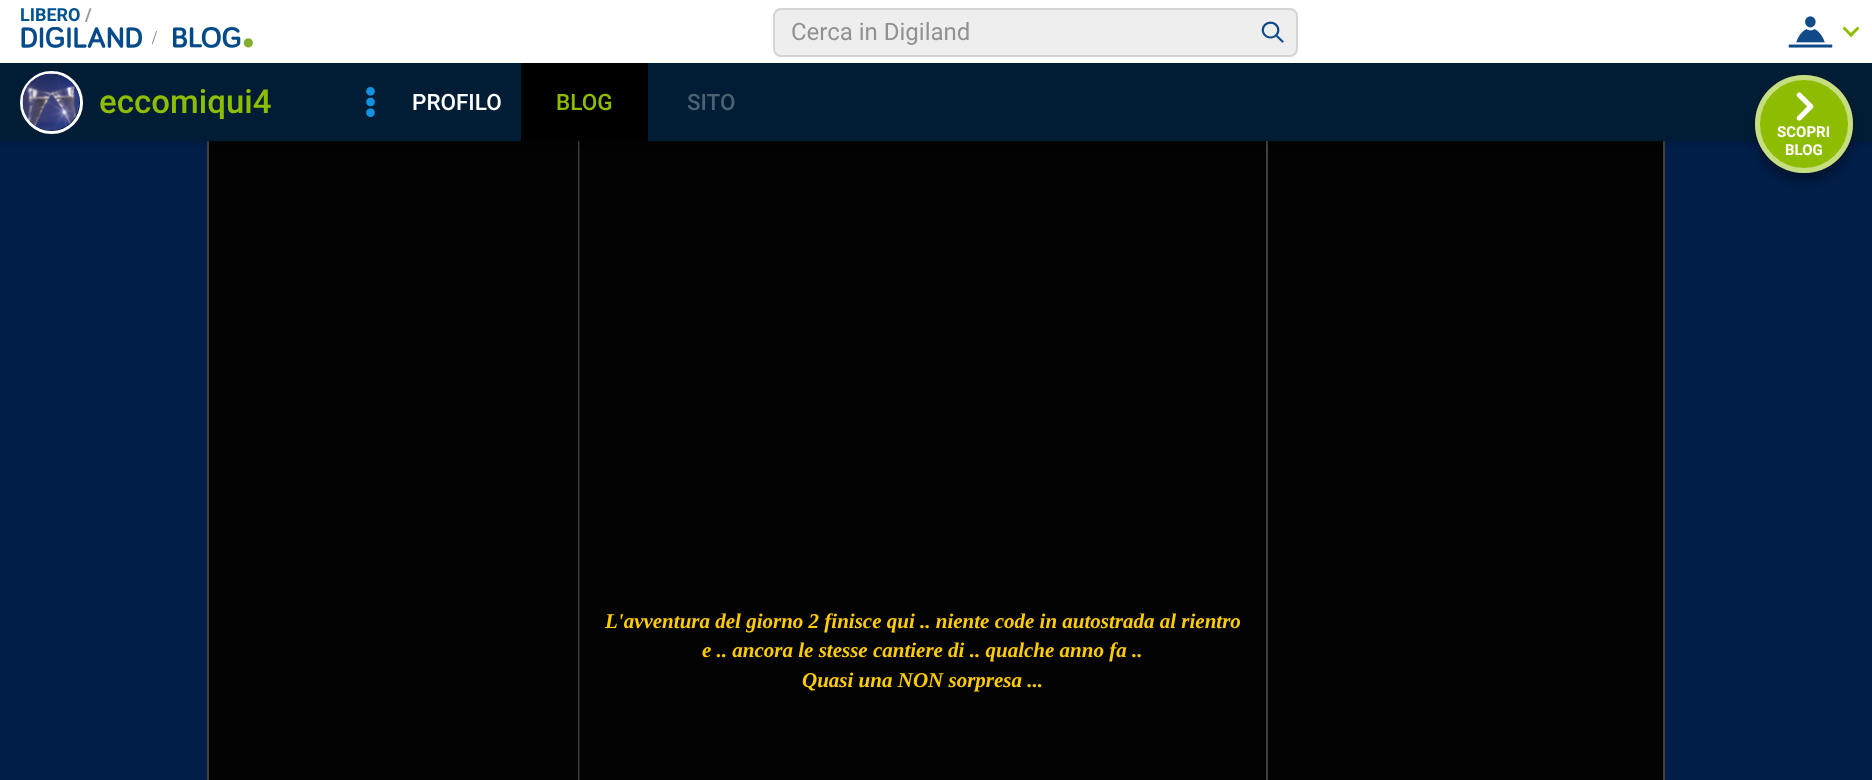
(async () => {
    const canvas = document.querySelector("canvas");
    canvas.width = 1872;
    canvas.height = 780;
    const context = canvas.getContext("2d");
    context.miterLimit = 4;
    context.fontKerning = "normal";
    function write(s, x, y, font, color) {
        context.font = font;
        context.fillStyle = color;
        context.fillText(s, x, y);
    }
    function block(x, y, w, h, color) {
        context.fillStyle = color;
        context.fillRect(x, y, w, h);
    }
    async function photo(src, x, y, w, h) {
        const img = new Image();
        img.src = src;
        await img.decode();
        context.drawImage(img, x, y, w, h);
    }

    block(0, 0, 1872, 780, "rgb(1, 30, 72)");
    block(209, 141, 1454, 639, "rgb(3, 3, 3)");
    context.strokeStyle = "rgb(64, 64, 64)";
    context.lineWidth = 2;
    context.strokeRect(208, -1, 1456, 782);
    context.strokeRect(579, -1, 688, 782);
    block(579, 141, 1, 639, "rgb(26, 26, 26)");
    context.fillStyle = "rgba(0, 0, 0, 0.2)";
    context.filter = "blur(4.5px)";
    context.beginPath();
    context.rect(0, 0, 1872, 141);
    context.fill();
    context.filter = "none";
    block(0, 0, 1872, 63, "rgb(255, 255, 255)");
    write("LIBERO", 20, 21, "bold 18px Roboto", "rgb(0, 82, 143)");
    write("/", 85, 21, "bold 18px Roboto", "rgb(153, 153, 153)");
    context.fillStyle = "rgb(238, 238, 238)";
    context.beginPath();
    context.roundRect(774, 9, 523, 47, 7);
    context.fill();
    context.strokeStyle = "rgb(213, 213, 213)";
    context.stroke();
    write("Cerca in Digiland", 791, 40, "24px Roboto", "rgb(145, 145, 145)");
    await photo("media/1.png", 1261, 21, 23, 22);
    await photo("media/2.png", 1788, 16, 45, 32);
    context.fillStyle = "rgb(142, 188, 0)";
    context.beginPath();
    context.moveTo(1857.5, 26.5);
    context.lineTo(1859.5, 28.5);
    context.lineTo(1851, 37);
    context.lineTo(1849, 35);
    context.closePath();
    context.fill();
    context.beginPath();
    context.moveTo(1844.5, 26.5);
    context.lineTo(1853, 35);
    context.lineTo(1851, 37);
    context.lineTo(1842.5, 28.5);
    context.closePath();
    context.fill();
    await photo("media/3.png", 21, 27, 121, 21);
    await photo("media/4.png", 151, 31, 6, 13);
    await photo("media/5.png", 172, 27, 81, 21);
    block(0, 63, 1872, 78, "rgb(0, 29, 53)");
    context.beginPath();
    context.arc(51.5, 102.5, 30, 0, Math.PI * 2);
    context.strokeStyle = "rgb(255, 255, 255)";
    context.lineWidth = 3;
    context.stroke();
    await photo("media/6.png", 22, 73, 58, 58);
    context.save();
    context.beginPath();
    context.rect(99, 86, 173, 33);
    context.clip();
    write("eccomiqui4", 99, 113, "500 33px Roboto", "rgb(142, 188, 0)");
    context.restore();
    await photo("media/7.png", 366, 87, 9, 30);
    write("PROFILO", 412, 110, "500 22.5px Roboto", "rgb(255, 255, 255)");
    block(521, 63, 127, 78, "rgb(0, 0, 0)");
    write("BLOG", 556, 110, "500 22.5px Roboto", "rgb(142, 188, 0)");
    write("SITO", 687, 110, "500 22.5px Roboto", "rgb(77, 97, 114)");
    context.fillStyle = "rgba(0, 0, 0, 0.3)";
    context.filter = "blur(4.5px)";
    context.beginPath();
    context.roundRect(1755, 84, 98, 98, 49);
    context.fill();
    context.filter = "none";
    context.fillStyle = "rgb(142, 188, 0)";
    context.beginPath();
    context.arc(1804, 124, 49, 0, Math.PI * 2);
    context.fill();
    context.beginPath();
    context.arc(1804, 124, 46.5, 0, Math.PI * 2);
    context.strokeStyle = "rgba(255, 255, 255, 0.5)";
    context.lineWidth = 5;
    context.stroke();
    await photo("media/8.png", 1796, 92, 18, 29);
    write("SCOPRI", 1777, 137, "bold 15px Roboto", "rgb(255, 255, 255)");
    write("BLOG", 1785, 155, "bold 15px Roboto", "rgb(255, 255, 255)");
    write("L'avventura del giorno 2 finisce qui .. niente code in autostrada al rientro", 605, 628, "italic bold 21px Liberation Serif", "rgb(255, 204, 0)");
    write("e .. ancora le stesse cantiere di .. qualche anno fa ..", 702, 657, "italic bold 21px Liberation Serif", "rgb(255, 204, 0)");
    write("Quasi una NON sorpresa ...", 802, 687, "italic bold 21px Liberation Serif", "rgb(255, 204, 0)");
})();
